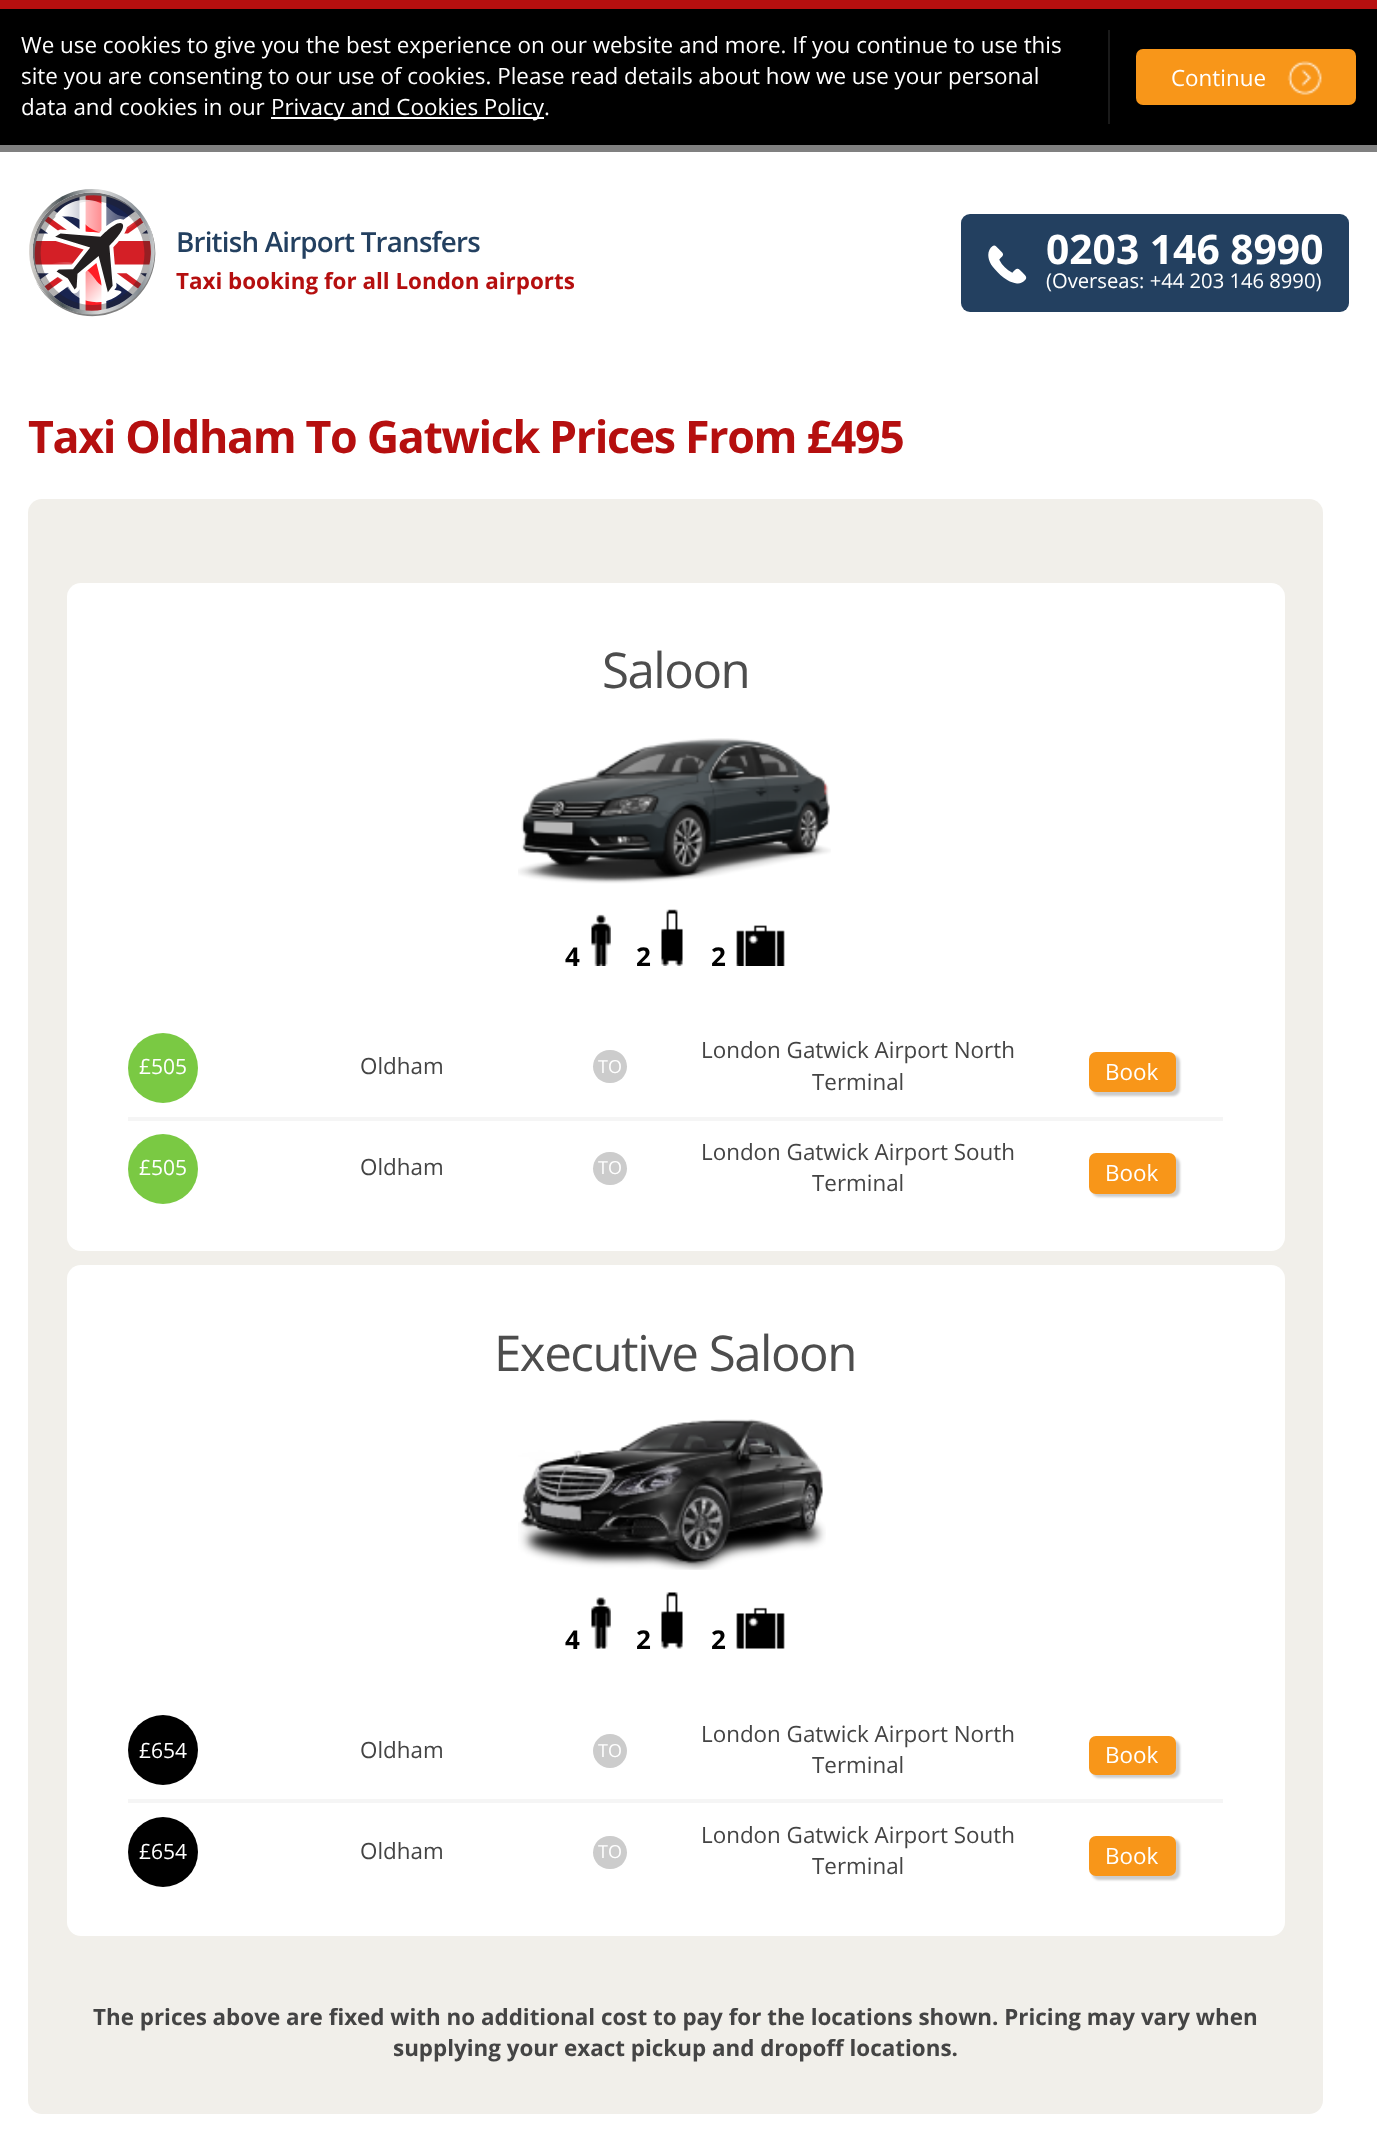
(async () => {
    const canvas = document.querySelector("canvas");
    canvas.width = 1377;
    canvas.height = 2142;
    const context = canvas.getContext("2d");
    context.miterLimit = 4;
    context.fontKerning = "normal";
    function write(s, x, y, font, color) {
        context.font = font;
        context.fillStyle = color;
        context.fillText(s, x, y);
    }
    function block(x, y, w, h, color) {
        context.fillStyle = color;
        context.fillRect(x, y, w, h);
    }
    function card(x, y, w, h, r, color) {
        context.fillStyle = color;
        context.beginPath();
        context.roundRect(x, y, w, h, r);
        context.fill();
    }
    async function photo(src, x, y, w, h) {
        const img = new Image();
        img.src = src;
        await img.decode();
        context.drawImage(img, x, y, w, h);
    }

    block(0, 0, 1377, 2142, "rgb(255, 255, 255)");
    block(0, 0, 1377, 9, "rgb(183, 15, 15)");
    block(0, 9, 1377, 136, "rgb(0, 0, 0)");
    block(0, 145, 1377, 7, "rgb(128, 128, 128)");
    write("We use cookies to give you the best experience on our website and more. If you continue to use this", 21, 53, "22.4px Open Sans", "rgb(255, 255, 255)");
    write("site you are consenting to our use of cookies. Please read details about how we use your personal", 21, 84, "22.4px Open Sans", "rgb(255, 255, 255)");
    write("data and cookies in our", 21, 115, "22.4px Open Sans", "rgb(255, 255, 255)");
    block(271, 117, 273, 2, "rgb(255, 255, 255)");
    write("Privacy and Cookies Policy.", 271, 115, "22.4px Open Sans", "rgb(255, 255, 255)");
    block(1108, 30, 2, 94, "rgb(26, 26, 26)");
    card(1136, 49, 220, 56, 7, "rgb(248, 150, 25)");
    await photo("media/1.png", 1287, 61, 35, 34);
    write("Continue", 1171, 86, "22.4px Open Sans", "rgb(255, 255, 255)");
    await photo("media/2.png", 29, 189, 127, 128);
    context.letterSpacing = "-0.8px";
    write("British Airport Transfers", 176, 252, "600 27.75px Open Sans", "rgb(35, 64, 96)");
    context.letterSpacing = "0px";
    write("Taxi booking for all London airports", 176, 289, "bold 22.4px Open Sans", "rgb(181, 15, 15)");
    card(961, 214, 388, 98, 9, "rgb(35, 64, 96)");
    await photo("media/3.png", 988, 245, 39, 39);
    write("0203 146 8990", 1046, 264, "bold 40.75px Open Sans", "rgb(255, 255, 255)");
    write("(Overseas: +44 203 146 8990)", 1046, 288, "20.2px Open Sans", "rgb(255, 255, 255)");
    context.letterSpacing = "-1.35px";
    write("Taxi Oldham To Gatwick Prices From £495", 28, 453, "bold 44.75px Open Sans", "rgb(181, 15, 15)");
    card(28, 499, 1295, 1615, 14, "rgb(241, 239, 234)");
    card(67, 583, 1218, 668, 14, "rgb(255, 255, 255)");
    context.letterSpacing = "-1.5px";
    write("Saloon", 602, 688, "49.25px Open Sans", "rgb(77, 77, 77)");
    await photo("media/4.png", 518, 738, 313, 146);
    context.letterSpacing = "0px";
    write("4", 565, 966, "bold 26px Open Sans", "rgb(0, 0, 0)");
    await photo("media/5.png", 591, 914, 20, 52);
    write("2", 636, 966, "bold 26px Open Sans", "rgb(0, 0, 0)");
    await photo("media/6.png", 661, 909, 22, 57);
    write("2", 711, 966, "bold 26px Open Sans", "rgb(0, 0, 0)");
    await photo("media/7.png", 736, 925, 49, 41);
    block(128, 1117, 1095, 4, "rgb(245, 245, 245)");
    context.fillStyle = "rgb(122, 201, 67)";
    context.beginPath();
    context.arc(163, 1068, 35, 0, Math.PI * 2);
    context.fill();
    write("£505", 139, 1074, "21px Open Sans", "rgb(255, 255, 255)");
    write("Oldham", 360, 1074, "22.4px Open Sans", "rgb(68, 68, 68)");
    card(593, 1050, 34, 33, 16.5, "rgb(204, 204, 204)");
    write("TO", 598, 1073, "18px Open Sans", "rgb(255, 255, 255)");
    write("London Gatwick Airport North", 701, 1058, "22.4px Open Sans", "rgb(68, 68, 68)");
    write("Terminal", 812, 1090, "22.4px Open Sans", "rgb(68, 68, 68)");
    context.fillStyle = "rgba(0, 0, 0, 0.2)";
    context.filter = "blur(1px)";
    context.beginPath();
    context.roundRect(1092, 1055, 88, 41, 7);
    context.fill();
    context.filter = "none";
    card(1089, 1052, 87, 40, 7, "rgb(248, 150, 25)");
    write("Book", 1105, 1080, "22.4px Open Sans", "rgb(255, 255, 255)");
    context.fillStyle = "rgb(122, 201, 67)";
    context.beginPath();
    context.arc(163, 1169, 35, 0, Math.PI * 2);
    context.fill();
    write("£505", 139, 1175, "21px Open Sans", "rgb(255, 255, 255)");
    write("Oldham", 360, 1175, "22.4px Open Sans", "rgb(68, 68, 68)");
    card(593, 1152, 34, 33, 16.5, "rgb(204, 204, 204)");
    write("TO", 598, 1174, "18px Open Sans", "rgb(255, 255, 255)");
    write("London Gatwick Airport South", 701, 1160, "22.4px Open Sans", "rgb(68, 68, 68)");
    write("Terminal", 812, 1191, "22.4px Open Sans", "rgb(68, 68, 68)");
    context.fillStyle = "rgba(0, 0, 0, 0.2)";
    context.filter = "blur(1px)";
    context.beginPath();
    context.roundRect(1092, 1157, 88, 40, 7);
    context.fill();
    context.filter = "none";
    card(1089, 1153, 87, 41, 7, "rgb(248, 150, 25)");
    write("Book", 1105, 1181, "22.4px Open Sans", "rgb(255, 255, 255)");
    card(67, 1265, 1218, 671, 14, "rgb(255, 255, 255)");
    context.letterSpacing = "-1.5px";
    write("Executive Saloon", 494, 1371, "49.25px Open Sans", "rgb(77, 77, 77)");
    await photo("media/8.png", 518, 1419, 308, 151);
    context.letterSpacing = "0px";
    write("4", 565, 1649, "bold 26px Open Sans", "rgb(0, 0, 0)");
    await photo("media/9.png", 591, 1597, 20, 52);
    write("2", 636, 1649, "bold 26px Open Sans", "rgb(0, 0, 0)");
    await photo("media/10.png", 661, 1592, 22, 57);
    write("2", 711, 1649, "bold 26px Open Sans", "rgb(0, 0, 0)");
    await photo("media/11.png", 736, 1607, 49, 42);
    block(128, 1799, 1095, 4, "rgb(245, 245, 245)");
    context.fillStyle = "rgb(0, 0, 0)";
    context.beginPath();
    context.arc(163, 1750, 35, 0, Math.PI * 2);
    context.fill();
    write("£654", 139, 1758, "21px Open Sans", "rgb(255, 255, 255)");
    write("Oldham", 360, 1758, "22.4px Open Sans", "rgb(68, 68, 68)");
    context.fillStyle = "rgb(204, 204, 204)";
    context.beginPath();
    context.arc(610, 1751, 17, 0, Math.PI * 2);
    context.fill();
    write("TO", 598, 1757, "18px Open Sans", "rgb(255, 255, 255)");
    write("London Gatwick Airport North", 701, 1742, "22.4px Open Sans", "rgb(68, 68, 68)");
    write("Terminal", 812, 1773, "22.4px Open Sans", "rgb(68, 68, 68)");
    context.fillStyle = "rgba(0, 0, 0, 0.2)";
    context.filter = "blur(1px)";
    context.beginPath();
    context.roundRect(1092, 1740, 88, 38, 7);
    context.fill();
    context.filter = "none";
    card(1089, 1736, 87, 39, 7, "rgb(248, 150, 25)");
    write("Book", 1105, 1763, "22.4px Open Sans", "rgb(255, 255, 255)");
    context.fillStyle = "rgb(0, 0, 0)";
    context.beginPath();
    context.arc(163, 1852, 35, 0, Math.PI * 2);
    context.fill();
    write("£654", 139, 1859, "21px Open Sans", "rgb(255, 255, 255)");
    write("Oldham", 360, 1859, "22.4px Open Sans", "rgb(68, 68, 68)");
    card(593, 1836, 34, 33, 16.5, "rgb(204, 204, 204)");
    write("TO", 598, 1858, "18px Open Sans", "rgb(255, 255, 255)");
    write("London Gatwick Airport South", 701, 1843, "22.4px Open Sans", "rgb(68, 68, 68)");
    write("Terminal", 812, 1874, "22.4px Open Sans", "rgb(68, 68, 68)");
    context.fillStyle = "rgba(0, 0, 0, 0.2)";
    context.filter = "blur(1px)";
    context.beginPath();
    context.roundRect(1092, 1839, 88, 41, 7);
    context.fill();
    context.filter = "none";
    card(1089, 1836, 87, 40, 7, "rgb(248, 150, 25)");
    write("Book", 1105, 1864, "22.4px Open Sans", "rgb(255, 255, 255)");
    write("The prices above are fixed with no additional cost to pay for the locations shown. Pricing may vary when", 93, 2025, "bold 22.4px Open Sans", "rgb(68, 68, 68)");
    write("supplying your exact pickup and dropoff locations.", 393, 2056, "bold 22.4px Open Sans", "rgb(68, 68, 68)");
})();
